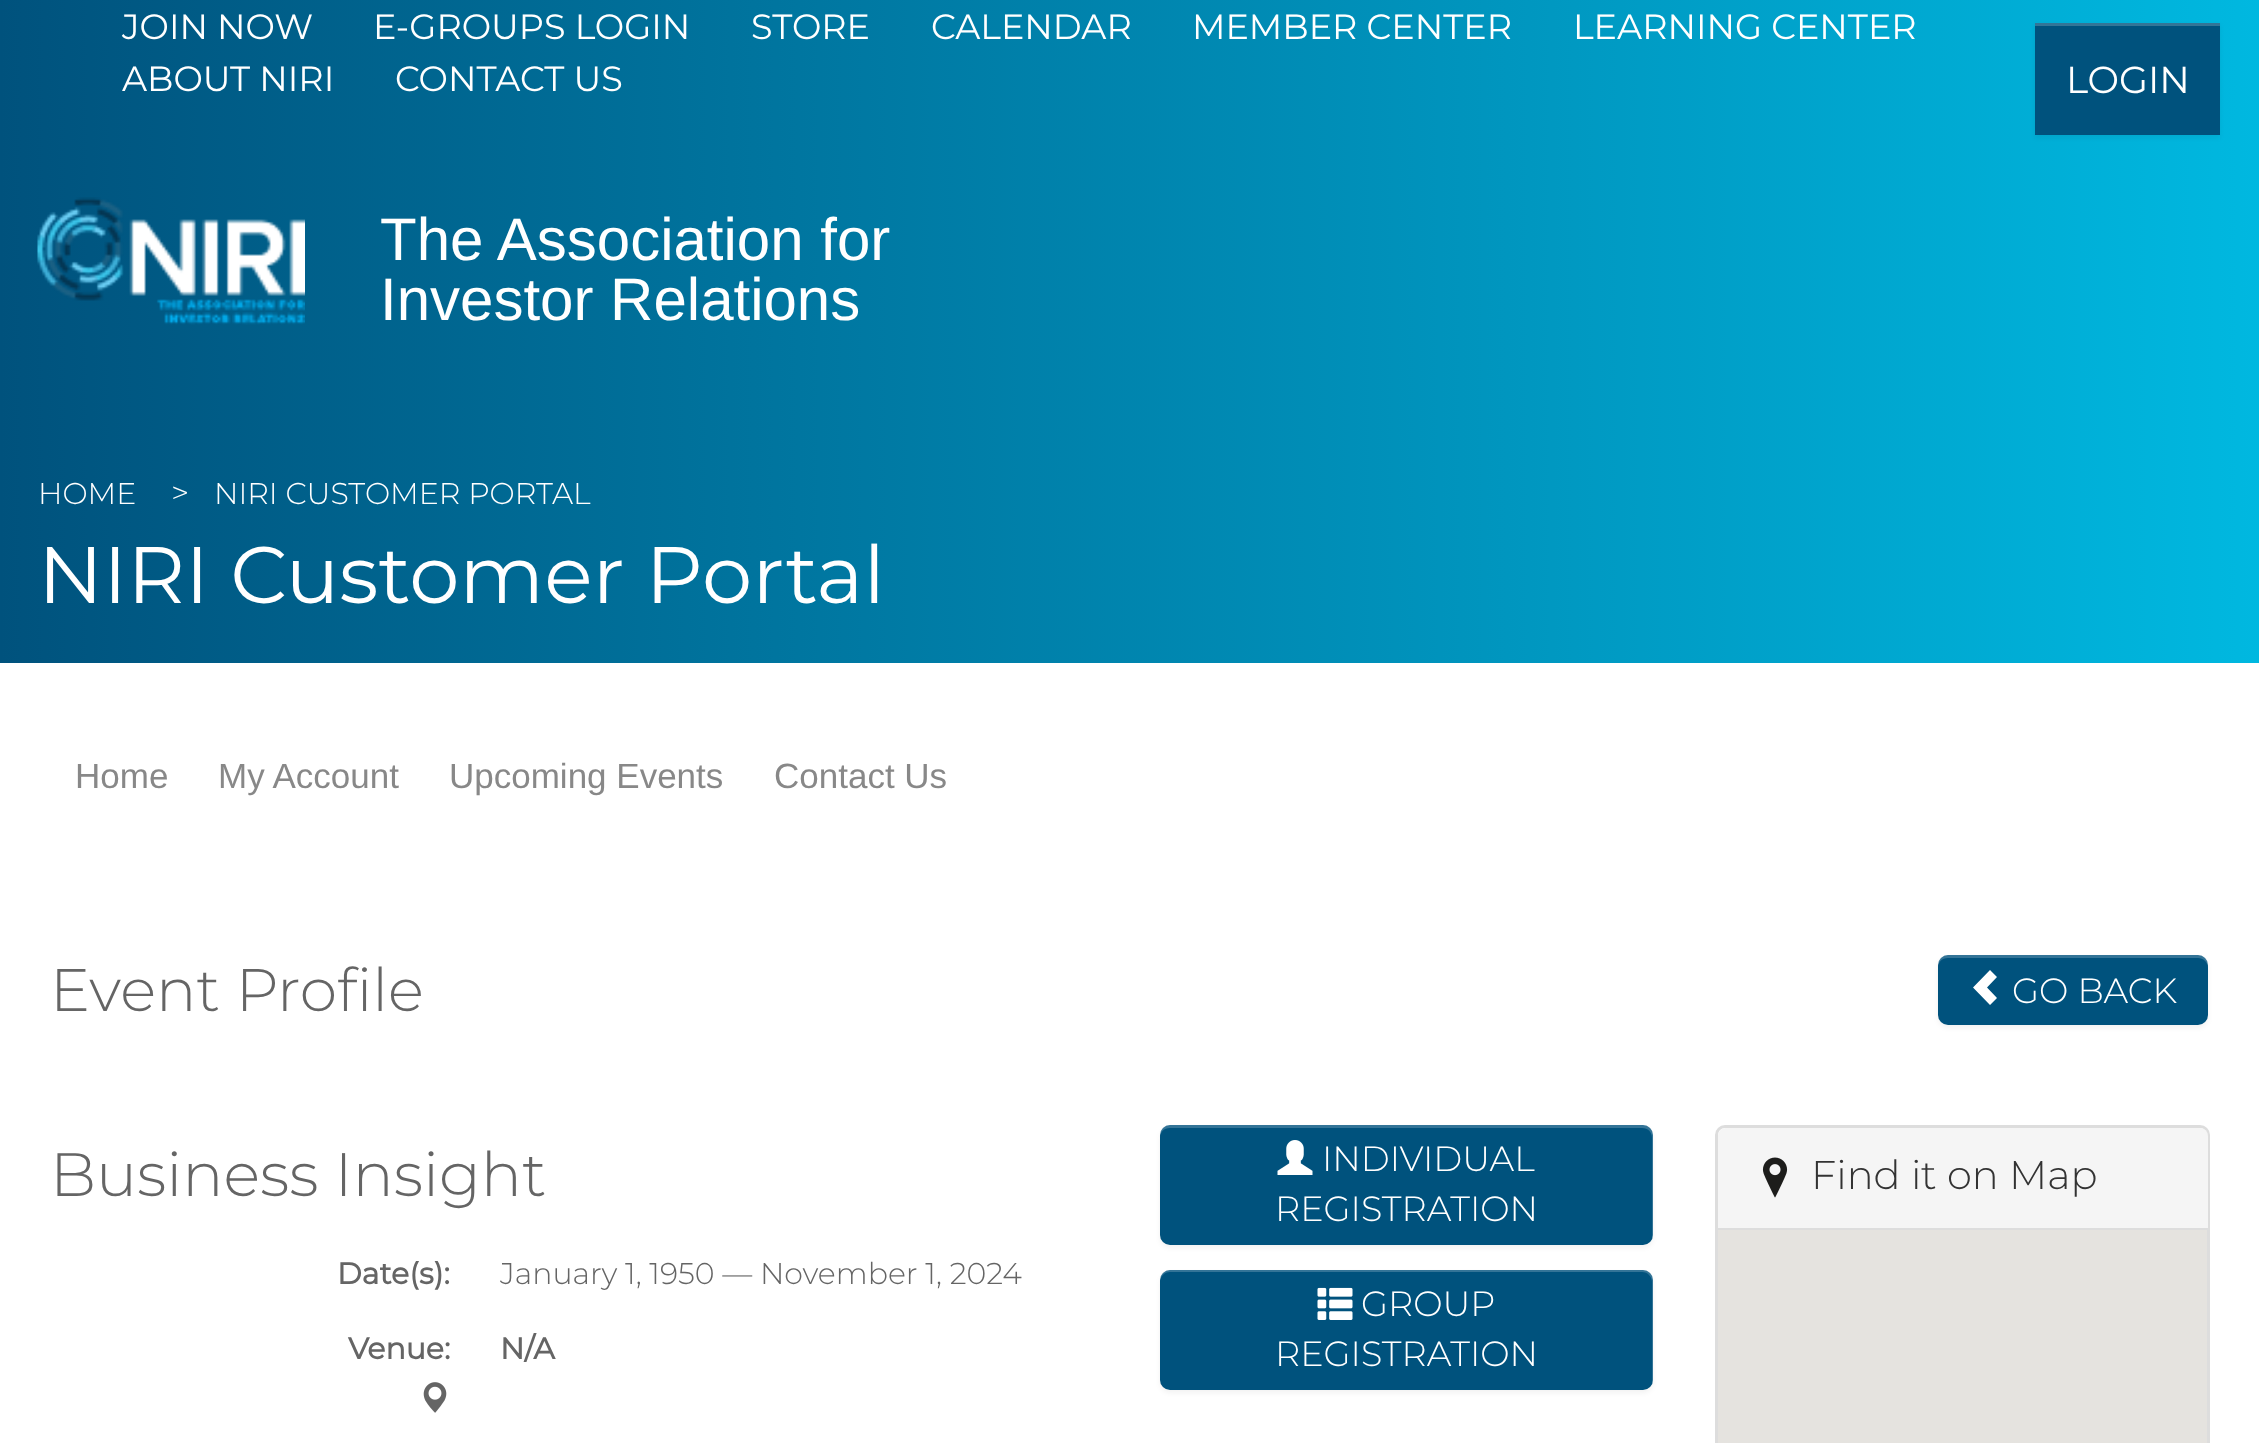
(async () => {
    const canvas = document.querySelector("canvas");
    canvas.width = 2259;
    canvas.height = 1443;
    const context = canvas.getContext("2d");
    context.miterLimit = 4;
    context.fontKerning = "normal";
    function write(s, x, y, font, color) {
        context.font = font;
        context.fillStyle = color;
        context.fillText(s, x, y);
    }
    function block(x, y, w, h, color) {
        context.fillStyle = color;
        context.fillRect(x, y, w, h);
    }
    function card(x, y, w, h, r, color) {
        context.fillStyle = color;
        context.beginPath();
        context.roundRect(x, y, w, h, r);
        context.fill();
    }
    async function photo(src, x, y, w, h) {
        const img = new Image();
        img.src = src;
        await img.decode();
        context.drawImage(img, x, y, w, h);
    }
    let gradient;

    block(0, 0, 2259, 1443, "rgb(255, 255, 255)");
    gradient = context.createLinearGradient(0, 68, 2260, 67);
    gradient.addColorStop(0, "rgb(0, 82, 125)");
    gradient.addColorStop(1, "rgb(0, 184, 224)");
    context.fillStyle = gradient;
    context.fillRect(0, 0, 2259, 135);
    write("JOIN NOW", 122, 39, "35px Montserrat", "rgb(255, 255, 255)");
    write("E-GROUPS LOGIN", 373, 39, "35px Montserrat", "rgb(255, 255, 255)");
    write("STORE", 751, 39, "35px Montserrat", "rgb(255, 255, 255)");
    write("CALENDAR", 931, 39, "35px Montserrat", "rgb(255, 255, 255)");
    write("MEMBER CENTER", 1192, 39, "35px Montserrat", "rgb(255, 255, 255)");
    write("LEARNING CENTER", 1573, 39, "35px Montserrat", "rgb(255, 255, 255)");
    write("ABOUT NIRI", 122, 91, "35px Montserrat", "rgb(255, 255, 255)");
    write("CONTACT US", 395, 91, "35px Montserrat", "rgb(255, 255, 255)");
    gradient = context.createLinearGradient(0, 269, 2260, 269);
    gradient.addColorStop(0, "rgb(0, 82, 125)");
    gradient.addColorStop(1, "rgb(0, 184, 224)");
    context.fillStyle = gradient;
    context.fillRect(0, 135, 2259, 268);
    context.fillStyle = "rgba(0, 0, 0, 0.05)";
    context.filter = "blur(2.5px)";
    context.beginPath();
    context.rect(2035, 25, 185, 113);
    context.fill();
    context.filter = "none";
    block(2035, 26, 185, 109, "rgb(0, 82, 125)");
    block(2035, 23, 185, 3, "rgb(51, 117, 151)");
    write("LOGIN", 2066, 93, "37.5px Montserrat", "rgb(255, 255, 255)");
    await photo("media/1.png", 37, 197, 268, 128);
    write("The Association for", 380, 260, "60px Liberation Sans", "rgb(255, 255, 255)");
    write("Investor Relations", 380, 320, "60px Liberation Sans", "rgb(255, 255, 255)");
    gradient = context.createLinearGradient(0, 564, 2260, 564);
    gradient.addColorStop(0, "rgb(0, 82, 125)");
    gradient.addColorStop(1, "rgb(0, 184, 224)");
    context.fillStyle = gradient;
    context.fillRect(0, 403, 2259, 260);
    write("HOME", 38, 504, "300 30px Montserrat", "rgb(255, 255, 255)");
    write(">", 171, 504, "300 32px Montserrat", "rgb(255, 255, 255)");
    write("NIRI CUSTOMER PORTAL", 214, 504, "300 30px Montserrat", "rgb(255, 255, 255)");
    write("NIRI Customer Portal", 38, 603, "80px Montserrat", "rgb(255, 255, 255)");
    write("Home", 75, 788, "35px Liberation Sans", "rgb(136, 136, 136)");
    write("My Account", 218, 788, "35px Liberation Sans", "rgb(136, 136, 136)");
    write("Upcoming Events", 449, 788, "35px Liberation Sans", "rgb(136, 136, 136)");
    write("Contact Us", 774, 788, "35px Liberation Sans", "rgb(136, 136, 136)");
    write("Event Profile", 50, 1011, "300 60px Montserrat", "rgb(101, 101, 101)");
    context.fillStyle = "rgba(0, 0, 0, 0.05)";
    context.filter = "blur(2.5px)";
    context.beginPath();
    context.roundRect(1938, 958, 270, 70, 10);
    context.fill();
    context.filter = "none";
    card(1938, 955, 270, 70, 10, "rgb(0, 82, 125)");
    context.fillStyle = "rgba(255, 255, 255, 0.2)";
    context.beginPath();
    context.moveTo(1948, 958);
    context.lineTo(2198, 958);
    context.bezierCurveTo(2203, 958, 2208, 962, 2208, 968);
    context.lineTo(2208, 965);
    context.bezierCurveTo(2208, 959, 2204, 955, 2198, 955);
    context.lineTo(1948, 955);
    context.bezierCurveTo(1942, 955, 1938, 959, 1938, 965);
    context.lineTo(1938, 968);
    context.bezierCurveTo(1938, 962, 1942, 958, 1948, 958);
    context.closePath();
    context.fill();
    context.fillStyle = "rgb(255, 255, 255)";
    context.beginPath();
    context.moveTo(1973, 987.5);
    context.lineTo(1990, 1005);
    context.lineTo(1997, 998);
    context.lineTo(1987, 987.5);
    context.lineTo(1997, 977);
    context.lineTo(1990, 970);
    context.closePath();
    context.fill();
    write("GO BACK", 2012, 1003, "300 35px Montserrat", "rgb(255, 255, 255)");
    write("Business Insight", 50, 1196, "300 61.25px Montserrat", "rgb(101, 101, 101)");
    write("Date(s):", 337, 1284, "bold 30px Montserrat", "rgb(101, 101, 101)");
    write("January 1, 1950 — November 1, 2024", 500, 1284, "300 30px Montserrat", "rgb(101, 101, 101)");
    write("Venue:", 348, 1359, "bold 30px Montserrat", "rgb(101, 101, 101)");
    write("N/A", 500, 1359, "bold 30px Montserrat", "rgb(101, 101, 101)");
    await photo("media/2.png", 423, 1382, 24, 31);
    context.fillStyle = "rgba(0, 0, 0, 0.05)";
    context.filter = "blur(2.5px)";
    context.beginPath();
    context.roundRect(1160, 1128, 493, 120, 10);
    context.fill();
    context.filter = "none";
    card(1160, 1125, 493, 120, 10, "rgb(0, 82, 125)");
    context.fillStyle = "rgba(255, 255, 255, 0.2)";
    context.beginPath();
    context.moveTo(1170, 1128);
    context.lineTo(1642, 1128);
    context.bezierCurveTo(1648, 1128, 1652, 1132, 1652, 1138);
    context.lineTo(1652, 1240);
    context.bezierCurveTo(1653, 1238, 1653, 1237, 1653, 1235);
    context.lineTo(1653, 1135);
    context.bezierCurveTo(1653, 1129, 1649, 1125, 1643, 1125);
    context.lineTo(1170, 1125);
    context.bezierCurveTo(1164, 1125, 1160, 1129, 1160, 1135);
    context.lineTo(1160, 1138);
    context.bezierCurveTo(1160, 1132, 1164, 1128, 1170, 1128);
    context.closePath();
    context.fill();
    await photo("media/3.png", 1277, 1140, 36, 35);
    write("INDIVIDUAL", 1322, 1171, "300 35px Montserrat", "rgb(255, 255, 255)");
    write("REGISTRATION", 1275, 1221, "300 35px Montserrat", "rgb(255, 255, 255)");
    context.fillStyle = "rgba(0, 0, 0, 0.05)";
    context.filter = "blur(2.5px)";
    context.beginPath();
    context.roundRect(1160, 1273, 493, 120, 10);
    context.fill();
    context.filter = "none";
    card(1160, 1270, 493, 120, 10, "rgb(0, 82, 125)");
    context.fillStyle = "rgba(255, 255, 255, 0.2)";
    context.beginPath();
    context.moveTo(1170, 1272);
    context.lineTo(1642, 1272);
    context.bezierCurveTo(1648, 1272, 1652, 1277, 1652, 1282);
    context.lineTo(1652, 1382);
    context.lineTo(1652, 1385);
    context.bezierCurveTo(1652, 1384, 1653, 1382, 1653, 1380);
    context.lineTo(1653, 1280);
    context.bezierCurveTo(1653, 1274, 1649, 1270, 1643, 1270);
    context.lineTo(1170, 1270);
    context.bezierCurveTo(1164, 1270, 1160, 1274, 1160, 1280);
    context.lineTo(1160, 1282);
    context.bezierCurveTo(1160, 1277, 1164, 1272, 1170, 1272);
    context.closePath();
    context.fill();
    await photo("media/4.png", 1317, 1287, 36, 33);
    write("GROUP", 1361, 1316, "300 35px Montserrat", "rgb(255, 255, 255)");
    write("REGISTRATION", 1275, 1366, "300 35px Montserrat", "rgb(255, 255, 255)");
    context.beginPath();
    context.roundRect(1716.5, 1126.5, 492, 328, 8.5);
    context.strokeStyle = "rgb(221, 221, 221)";
    context.lineWidth = 3;
    context.stroke();
    context.fillStyle = "rgb(245, 245, 245)";
    context.beginPath();
    context.roundRect(1718, 1128, 490, 102, [8, 8, 0, 0]);
    context.fill();
    block(1718, 1228, 490, 3, "rgb(221, 221, 221)");
    await photo("media/5.png", 1762, 1157, 26, 41);
    write("Find it on Map", 1811, 1189, "300 40px Montserrat", "rgb(51, 51, 51)");
    block(1718, 1230, 489, 213, "rgb(229, 227, 223)");
})();
